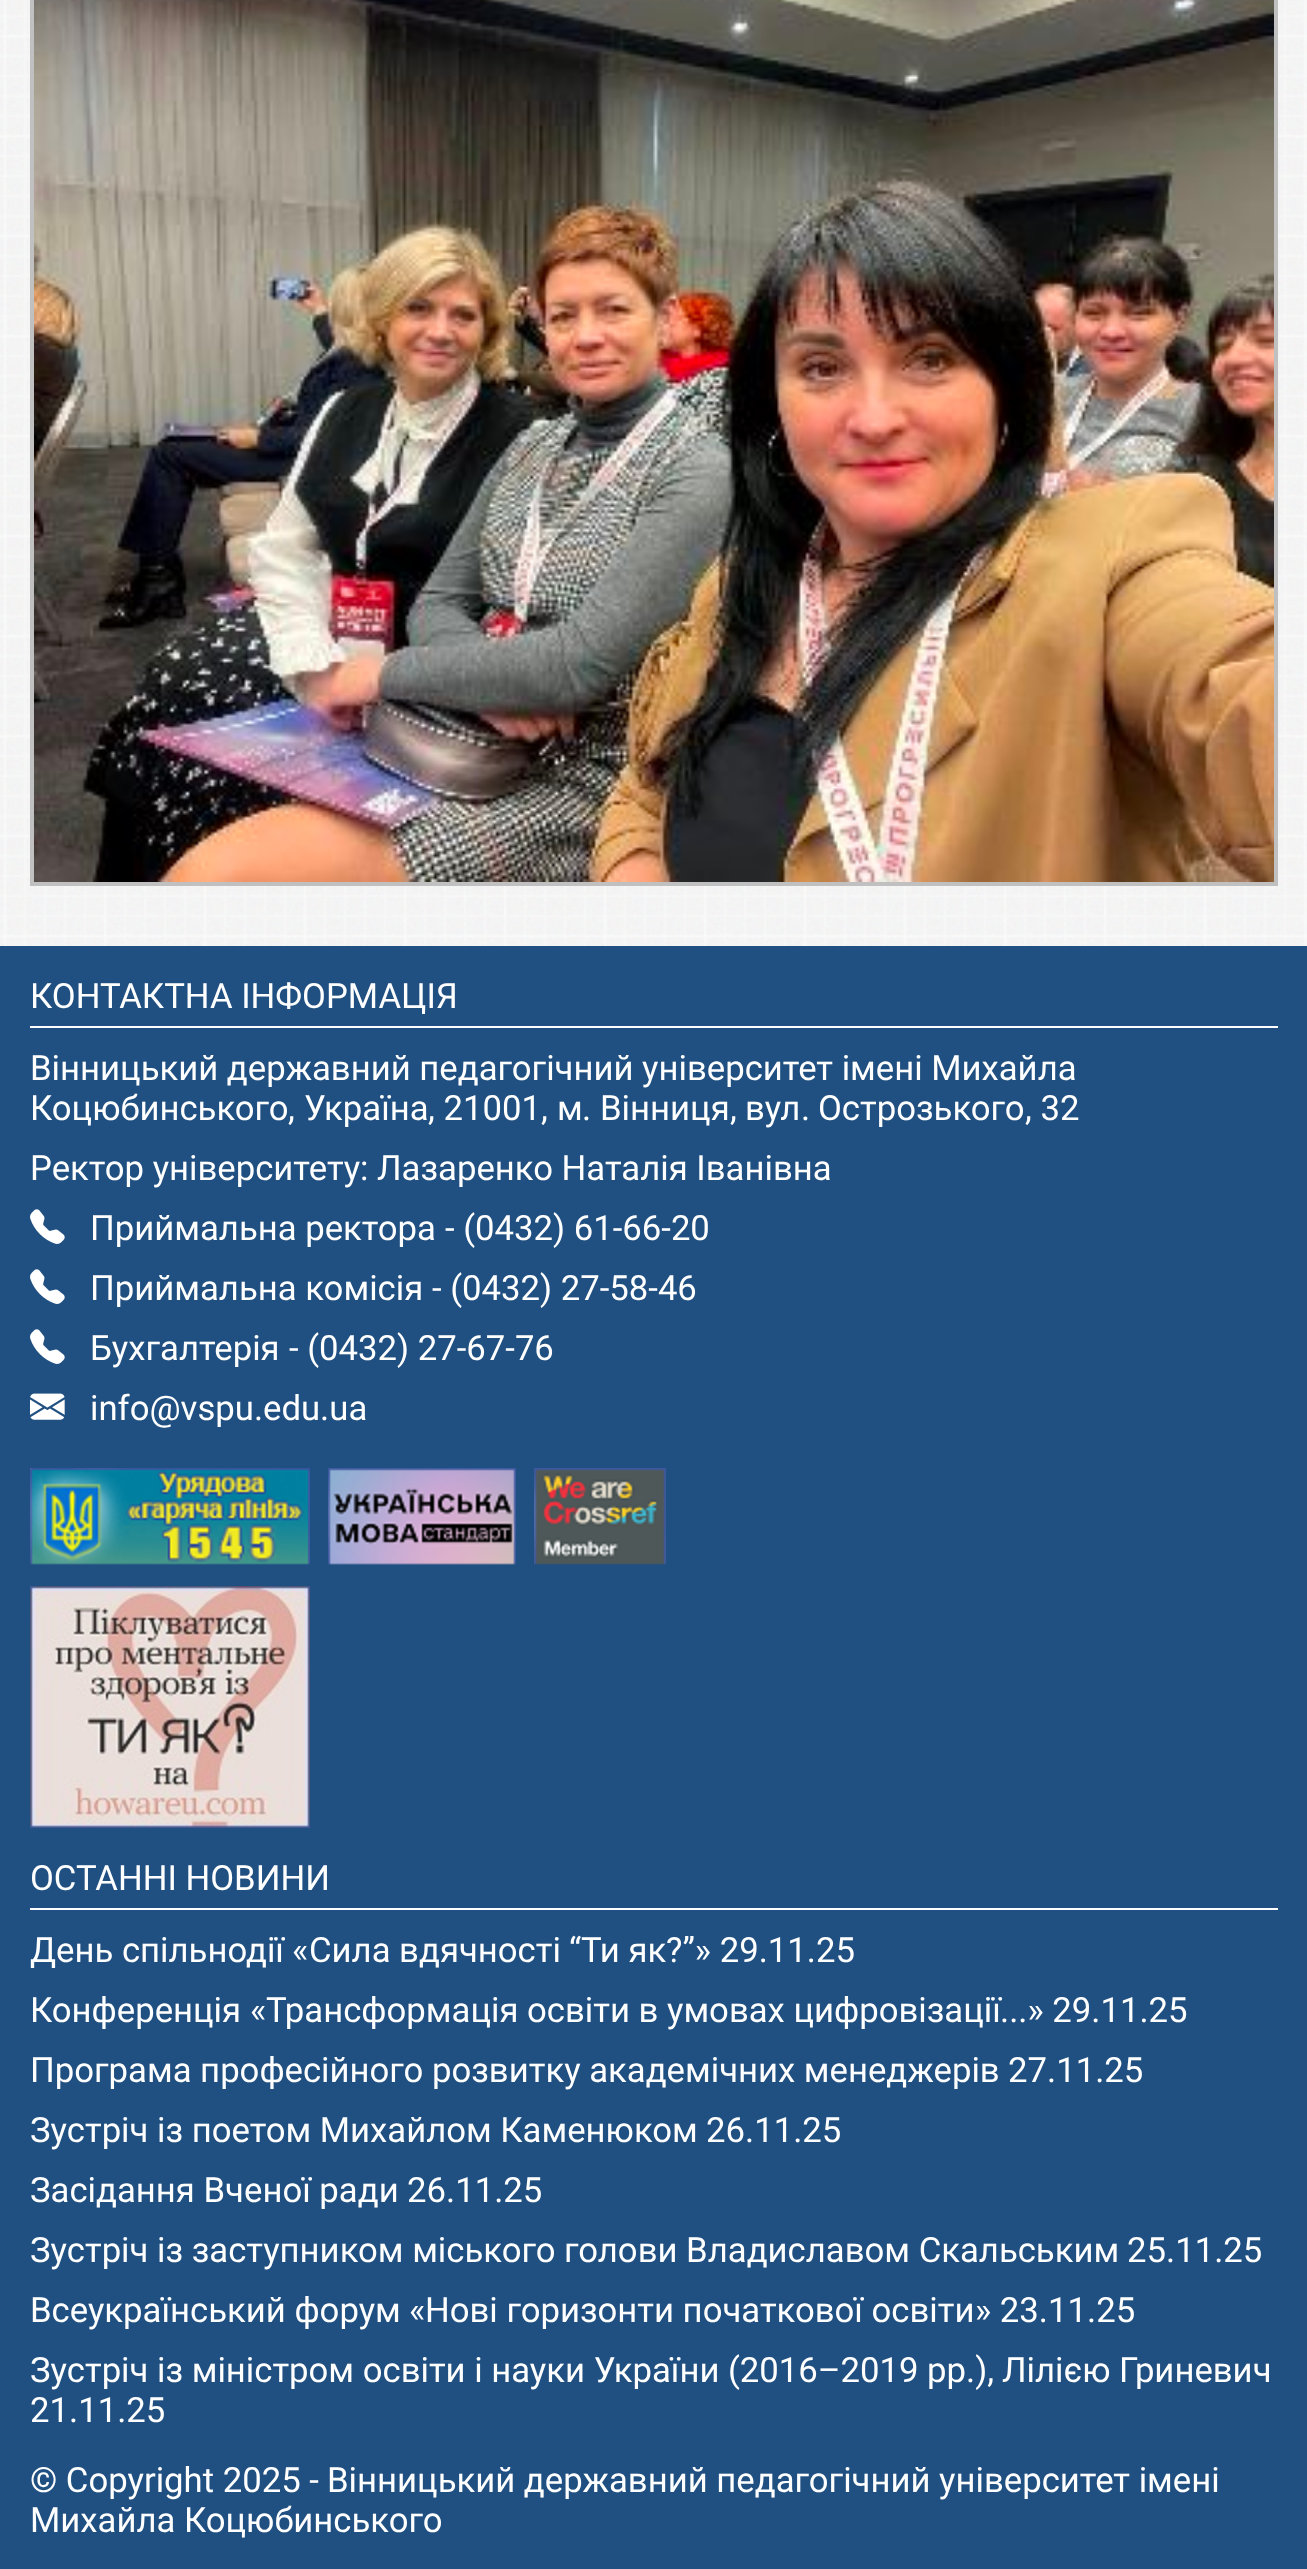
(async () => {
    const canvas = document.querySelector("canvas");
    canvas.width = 1307;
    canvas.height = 2569;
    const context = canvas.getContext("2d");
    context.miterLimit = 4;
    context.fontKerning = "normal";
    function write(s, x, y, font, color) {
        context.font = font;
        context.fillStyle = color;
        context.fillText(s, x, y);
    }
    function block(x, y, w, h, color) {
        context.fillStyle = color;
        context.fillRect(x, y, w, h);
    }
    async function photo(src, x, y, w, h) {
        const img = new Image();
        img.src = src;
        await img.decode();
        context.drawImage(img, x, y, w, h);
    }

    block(0, 0, 1307, 2569, "rgb(255, 255, 255)");
    await photo("media/1.png", 0, 0, 1307, 946);
    context.strokeStyle = "rgb(192, 192, 192)";
    context.lineWidth = 4;
    context.strokeRect(32, -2, 1244, 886);
    await photo("media/2.png", 34, 0, 1240, 882);
    block(0, 946, 1307, 1623, "rgb(32, 80, 129)");
    block(30, 1026, 1248, 2, "rgb(255, 255, 255)");
    write("КОНТАКТНА ІНФОРМАЦІЯ", 30, 1008, "34.7px Roboto", "rgb(255, 255, 255)");
    write("Вінницький державний педагогічний університет імені Михайла", 30, 1080, "34.7px Roboto", "rgb(255, 255, 255)");
    write("Коцюбинського", 30, 1120, "34.7px Roboto", "rgb(255, 255, 255)");
    write(",", 288, 1120, "34.7px 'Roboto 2'", "rgb(255, 255, 255)");
    write("Україна", 304, 1120, "34.7px Roboto", "rgb(255, 255, 255)");
    write(", 21001,", 428, 1120, "34.7px 'Roboto 2'", "rgb(255, 255, 255)");
    write("м", 557, 1120, "34.7px Roboto", "rgb(255, 255, 255)");
    write(".", 582, 1120, "34.7px 'Roboto 2'", "rgb(255, 255, 255)");
    write("Вінниця", 600, 1120, "34.7px Roboto", "rgb(255, 255, 255)");
    write(",", 730, 1120, "34.7px 'Roboto 2'", "rgb(255, 255, 255)");
    write("вул", 745, 1120, "34.7px Roboto", "rgb(255, 255, 255)");
    write(".", 801, 1120, "34.7px 'Roboto 2'", "rgb(255, 255, 255)");
    write("Острозького", 818, 1120, "34.7px Roboto", "rgb(255, 255, 255)");
    write(", 32", 1025, 1120, "34.7px 'Roboto 2'", "rgb(255, 255, 255)");
    write("Ректор університету", 30, 1180, "34.7px Roboto", "rgb(255, 255, 255)");
    write(":", 360, 1180, "34.7px 'Roboto 2'", "rgb(255, 255, 255)");
    write("Лазаренко Наталія Іванівна", 377, 1180, "34.7px Roboto", "rgb(255, 255, 255)");
    await photo("media/3.png", 30, 1209, 35, 35);
    write("Приймальна ректора", 90, 1240, "34.7px Roboto", "rgb(255, 255, 255)");
    write("- (0432) 61-66-20", 445, 1240, "34.7px 'Roboto 2'", "rgb(255, 255, 255)");
    await photo("media/3.png", 30, 1269, 35, 35);
    write("Приймальна комісія", 90, 1300, "34.7px Roboto", "rgb(255, 255, 255)");
    write("- (0432) 27-58-46", 432, 1300, "34.7px 'Roboto 2'", "rgb(255, 255, 255)");
    await photo("media/3.png", 30, 1329, 35, 35);
    write("Бухгалтерія", 90, 1360, "34.7px Roboto", "rgb(255, 255, 255)");
    write("- (0432) 27-67-76", 289, 1360, "34.7px 'Roboto 2'", "rgb(255, 255, 255)");
    await photo("media/4.png", 30, 1393, 35, 27);
    write("info@vspu.edu.ua", 90, 1420, "34.7px 'Roboto 2'", "rgb(255, 255, 255)");
    await photo("media/5.png", 30, 1468, 280, 97);
    await photo("media/6.png", 328, 1468, 188, 97);
    await photo("media/7.png", 534, 1468, 132, 97);
    await photo("media/8.png", 30, 1586, 280, 242);
    block(30, 1908, 1248, 2, "rgb(255, 255, 255)");
    write("ОСТАННІ НОВИНИ", 30, 1890, "34.7px Roboto", "rgb(255, 255, 255)");
    write("День спільнодії", 30, 1962, "34.7px Roboto", "rgb(255, 255, 255)");
    write("«", 292, 1962, "34.7px 'Roboto 2'", "rgb(255, 255, 255)");
    write("Сила вдячності", 309, 1962, "34.7px Roboto", "rgb(255, 255, 255)");
    write("“", 569, 1962, "34.7px 'Roboto 2'", "rgb(255, 255, 255)");
    write("Ти як", 581, 1962, "34.7px Roboto", "rgb(255, 255, 255)");
    write("?”» 29.11.25", 666, 1962, "34.7px 'Roboto 2'", "rgb(255, 255, 255)");
    write("Конференція", 30, 2022, "34.7px Roboto", "rgb(255, 255, 255)");
    write("«", 250, 2022, "34.7px 'Roboto 2'", "rgb(255, 255, 255)");
    write("Трансформація освіти в умовах цифровізації", 266, 2022, "34.7px Roboto", "rgb(255, 255, 255)");
    write("...» 29.11.25", 1000, 2022, "34.7px 'Roboto 2'", "rgb(255, 255, 255)");
    write("Програма професійного розвитку академічних менеджерів", 30, 2082, "34.7px Roboto", "rgb(255, 255, 255)");
    write("27.11.25", 1008, 2082, "34.7px 'Roboto 2'", "rgb(255, 255, 255)");
    write("Зустріч із поетом Михайлом Каменюком", 30, 2142, "34.7px Roboto", "rgb(255, 255, 255)");
    write("26.11.25", 706, 2142, "34.7px 'Roboto 2'", "rgb(255, 255, 255)");
    write("Засідання Вченої ради", 30, 2202, "34.7px Roboto", "rgb(255, 255, 255)");
    write("26.11.25", 407, 2202, "34.7px 'Roboto 2'", "rgb(255, 255, 255)");
    write("Зустріч із заступником міського голови Владиславом Скальським", 30, 2262, "34.7px Roboto", "rgb(255, 255, 255)");
    write("25.11.25", 1127, 2262, "34.7px 'Roboto 2'", "rgb(255, 255, 255)");
    write("Всеукраїнський форум", 30, 2322, "34.7px Roboto", "rgb(255, 255, 255)");
    write("«", 409, 2322, "34.7px 'Roboto 2'", "rgb(255, 255, 255)");
    write("Нові горизонти початкової освіти", 425, 2322, "34.7px Roboto", "rgb(255, 255, 255)");
    write("» 23.11.25", 975, 2322, "34.7px 'Roboto 2'", "rgb(255, 255, 255)");
    write("Зустріч із міністром освіти і науки України", 30, 2382, "34.7px Roboto", "rgb(255, 255, 255)");
    write("(2016–2019", 728, 2382, "34.7px 'Roboto 2'", "rgb(255, 255, 255)");
    write("рр", 927, 2382, "34.7px Roboto", "rgb(255, 255, 255)");
    write(".),", 966, 2382, "34.7px 'Roboto 2'", "rgb(255, 255, 255)");
    write("Лілією Гриневич", 1002, 2382, "34.7px Roboto", "rgb(255, 255, 255)");
    write("21.11.25", 30, 2422, "34.7px 'Roboto 2'", "rgb(255, 255, 255)");
    write("© Copyright 2025 -", 30, 2492, "34.7px 'Roboto 2'", "rgb(255, 255, 255)");
    write("Вінницький державний педагогічний університет імені", 327, 2492, "34.7px Roboto", "rgb(255, 255, 255)");
    write("Михайла Коцюбинського", 30, 2532, "34.7px Roboto", "rgb(255, 255, 255)");
})();
